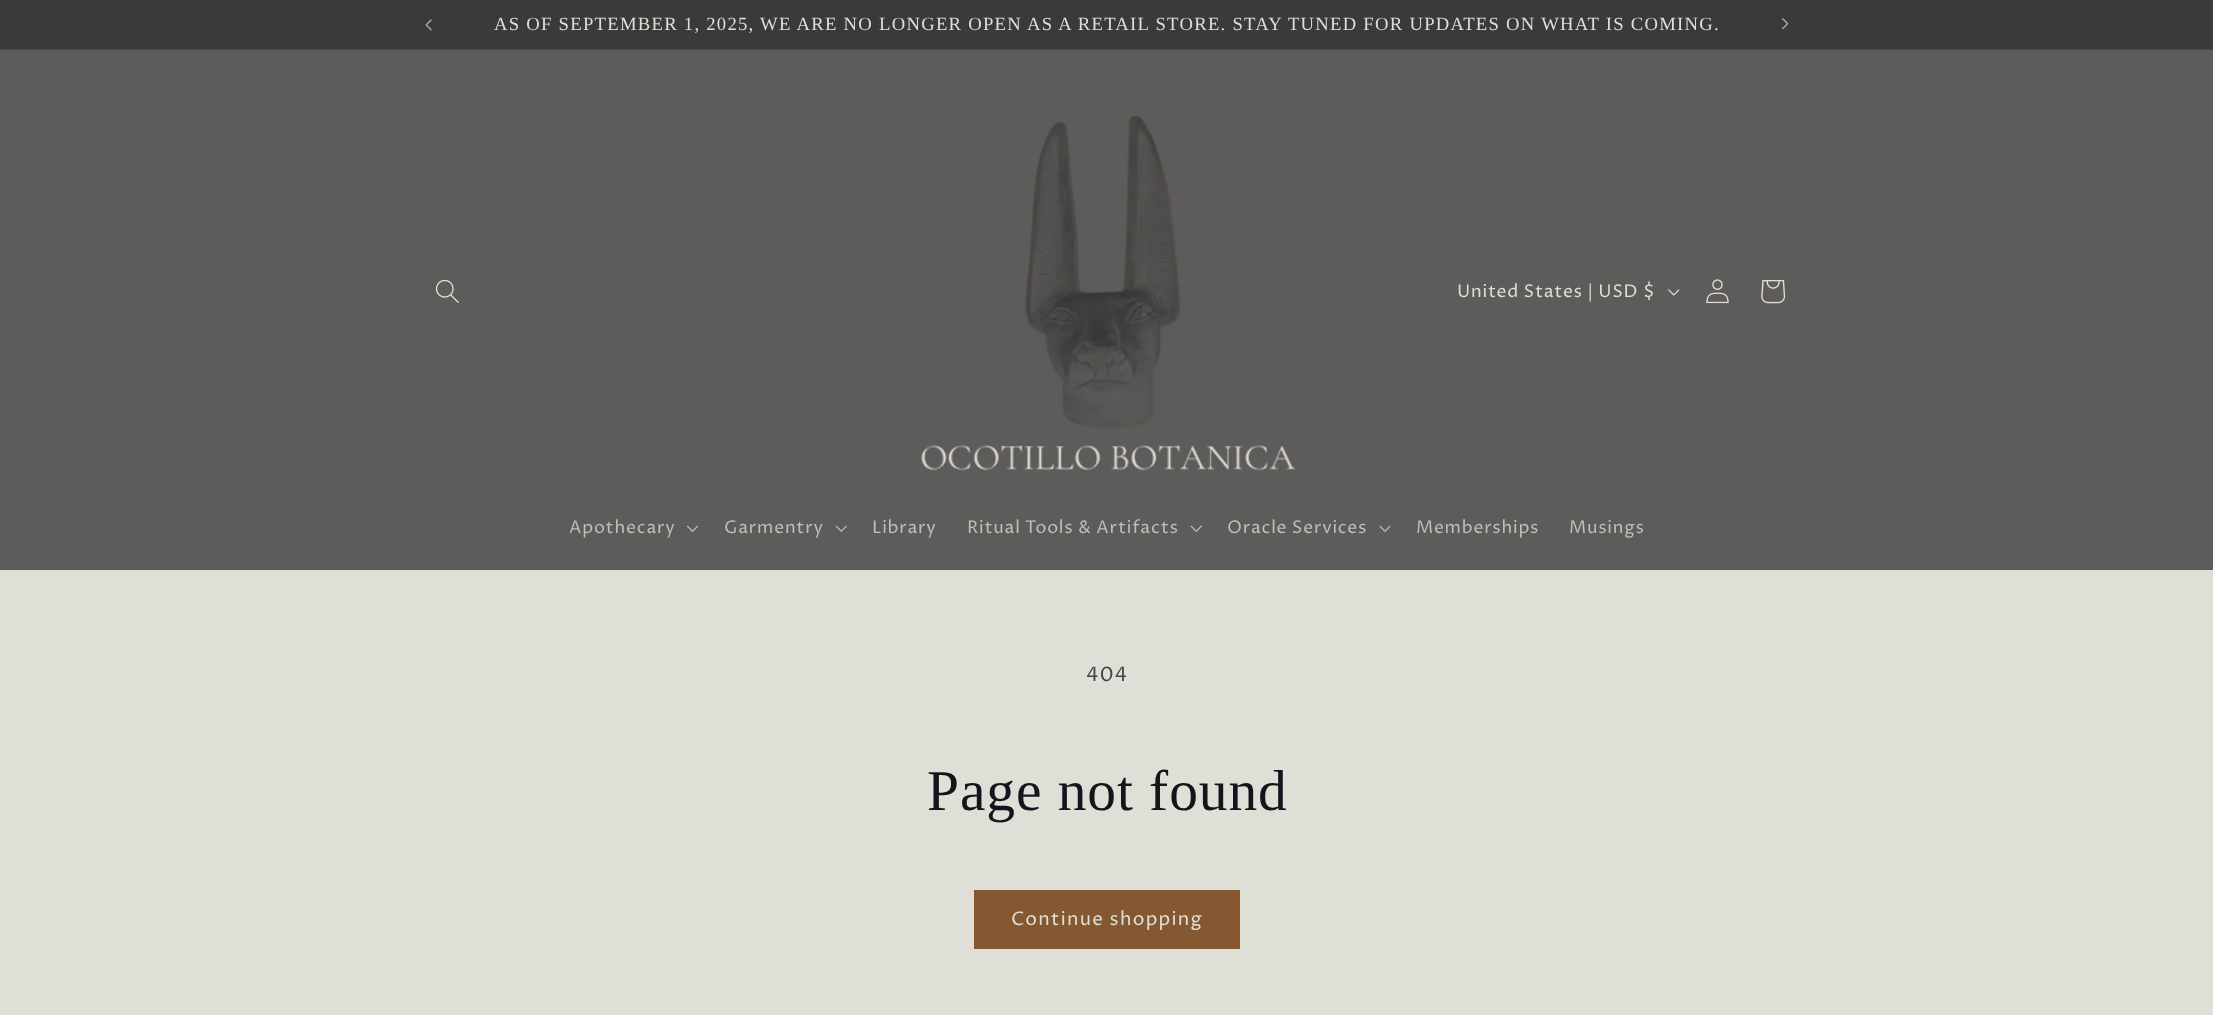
(async () => {
    const canvas = document.querySelector("canvas");
    canvas.width = 2213;
    canvas.height = 1015;
    const context = canvas.getContext("2d");
    context.miterLimit = 4;
    context.fontKerning = "normal";
    function write(s, x, y, font, color) {
        context.font = font;
        context.fillStyle = color;
        context.fillText(s, x, y);
    }
    function block(x, y, w, h, color) {
        context.fillStyle = color;
        context.fillRect(x, y, w, h);
    }
    async function photo(src, x, y, w, h) {
        const img = new Image();
        img.src = src;
        await img.decode();
        context.drawImage(img, x, y, w, h);
    }

    block(0, 0, 2213, 1015, "rgb(223, 223, 216)");
    block(0, 0, 2213, 49, "rgb(58, 58, 58)");
    block(0, 49, 2213, 1, "rgb(71, 71, 71)");
    await photo("media/1.png", 425, 19, 7, 12);
    context.letterSpacing = "1.25px";
    write("AS OF SEPTEMBER 1, 2025, WE ARE NO LONGER OPEN AS A RETAIL STORE. STAY TUNED FOR UPDATES ON WHAT IS COMING.", 494, 30, "18.7px Liberation Serif", "rgb(223, 223, 216)");
    await photo("media/2.png", 1782, 18, 7, 12);
    block(0, 50, 2213, 520, "rgb(94, 92, 90)");
    await photo("media/3.png", 435, 279, 24, 24);
    await photo("media/4.png", 921, 116, 374, 355);
    context.letterSpacing = "0.75px";
    write("United States | USD $", 1457, 297, "17.5px Proza Libre", "rgb(223, 223, 216)");
    await photo("media/5.png", 1668, 289, 12, 7);
    await photo("media/6.png", 1706, 279, 23, 25);
    await photo("media/7.png", 1761, 280, 25, 24);
    write("Apothecary", 569, 533, "17.5px Proza Libre", "rgb(192, 190, 186)");
    await photo("media/8.png", 686, 525, 12, 7);
    write("Garmentry", 724, 533, "17.5px Proza Libre", "rgb(192, 190, 186)");
    await photo("media/9.png", 835, 525, 12, 7);
    write("Library", 872, 533, "17.5px Proza Libre", "rgb(192, 190, 186)");
    write("Ritual Tools & Artifacts", 967, 533, "17.5px Proza Libre", "rgb(192, 190, 186)");
    await photo("media/9.png", 1190, 525, 12, 7);
    write("Oracle Services", 1227, 533, "17.5px Proza Libre", "rgb(192, 190, 186)");
    await photo("media/10.png", 1379, 525, 12, 7);
    write("Memberships", 1416, 533, "17.5px Proza Libre", "rgb(192, 190, 186)");
    write("Musings", 1569, 533, "17.5px Proza Libre", "rgb(192, 190, 186)");
    write("404", 1086, 681, "20px Proza Libre", "rgb(69, 72, 75)");
    context.letterSpacing = "0.9px";
    write("Page not found", 927, 810, "57.5px Liberation Serif", "rgb(17, 21, 28)");
    block(974, 890, 266, 59, "rgb(133, 88, 50)");
    context.letterSpacing = "1.25px";
    write("Continue shopping", 1011, 925, "18.75px Proza Libre", "rgb(223, 223, 216)");
})();
